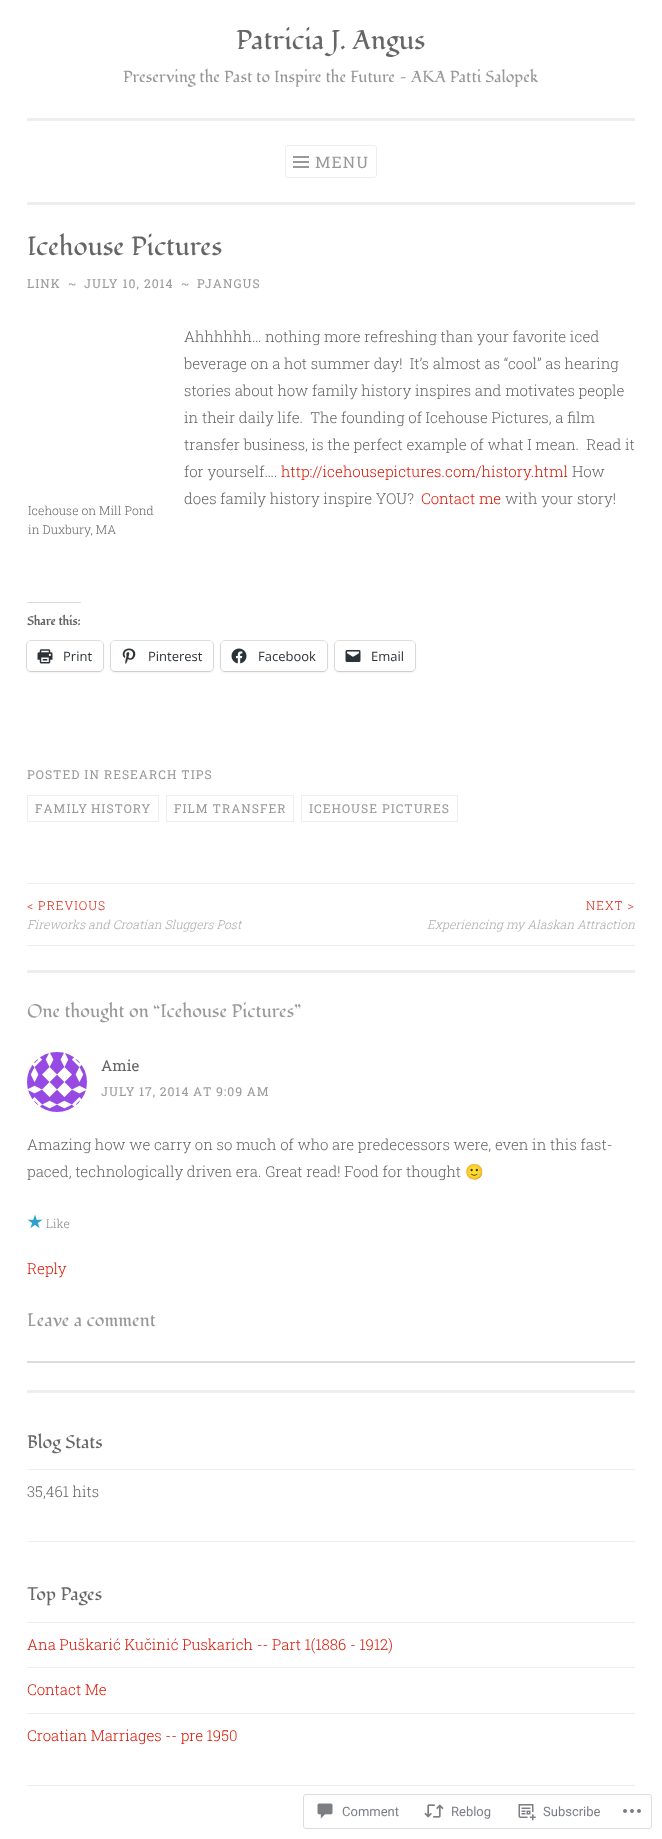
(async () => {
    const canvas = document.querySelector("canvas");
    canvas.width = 662;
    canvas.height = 1839;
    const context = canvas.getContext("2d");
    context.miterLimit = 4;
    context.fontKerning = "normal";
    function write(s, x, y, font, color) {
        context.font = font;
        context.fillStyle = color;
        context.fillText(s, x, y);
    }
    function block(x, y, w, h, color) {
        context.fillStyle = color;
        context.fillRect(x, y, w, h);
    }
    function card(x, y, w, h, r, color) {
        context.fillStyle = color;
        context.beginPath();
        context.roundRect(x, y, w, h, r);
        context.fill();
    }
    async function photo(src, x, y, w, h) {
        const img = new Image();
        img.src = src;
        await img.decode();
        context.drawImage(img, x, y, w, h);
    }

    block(0, 0, 662, 1839, "rgb(255, 255, 255)");
    block(27, 202, 608, 3, "rgb(238, 238, 238)");
    write("Patricia J. Angus", 236, 49, "27px Fondamento", "rgb(102, 102, 102)");
    write("Preserving the Past to Inspire the Future — AKA Patti Salopek", 123, 82, "16px Fondamento", "rgb(153, 153, 153)");
    block(27, 118, 608, 3, "rgb(238, 238, 238)");
    context.beginPath();
    context.roundRect(285.5, 145.5, 91, 32, 2.5);
    context.strokeStyle = "rgb(238, 238, 238)";
    context.stroke();
    await photo("media/1.png", 293, 156, 16, 12);
    context.letterSpacing = "1px";
    write("MENU", 315, 168, "16px Roboto Slab", "rgb(153, 153, 153)");
    context.letterSpacing = "0px";
    write("Icehouse Pictures", 27, 255, "26.25px Fondamento", "rgb(102, 102, 102)");
    context.letterSpacing = "1px";
    write("LINK", 27, 288, "12.2px Roboto Slab", "rgb(153, 153, 153)");
    write("~", 68, 288, "12.2px Roboto Slab", "rgb(153, 153, 153)");
    write("JULY 10, 2014", 84, 288, "12.2px Roboto Slab", "rgb(153, 153, 153)");
    write("~", 181, 288, "12.2px Roboto Slab", "rgb(153, 153, 153)");
    write("PJANGUS", 197, 288, "12.2px Roboto Slab", "rgb(153, 153, 153)");
    context.letterSpacing = "0px";
    write("Ahhhhhh… nothing more refreshing than your favorite iced", 184, 342, "300 15px Roboto Slab", "rgb(102, 102, 102)");
    write("beverage on a hot summer day!  It’s almost as “cool” as hearing", 184, 369, "300 15px Roboto Slab", "rgb(102, 102, 102)");
    write("stories about how family history inspires and motivates people", 184, 396, "300 15px Roboto Slab", "rgb(102, 102, 102)");
    write("in their daily life.  The founding of Icehouse Pictures, a film", 184, 423, "300 15px Roboto Slab", "rgb(102, 102, 102)");
    write("transfer business, is the perfect example of what I mean.  Read it", 184, 450, "300 15px Roboto Slab", "rgb(102, 102, 102)");
    write("for yourself….", 184, 477, "300 15px Roboto Slab", "rgb(102, 102, 102)");
    write("http://icehousepictures.com/history.html", 281, 477, "300 15px Roboto Slab", "rgb(218, 23, 5)");
    write("How", 572, 477, "300 15px Roboto Slab", "rgb(102, 102, 102)");
    write("does family history inspire YOU?", 184, 504, "300 15px Roboto Slab", "rgb(102, 102, 102)");
    write("Contact me", 421, 504, "300 15px Roboto Slab", "rgb(218, 23, 5)");
    write("with your story!", 505, 504, "300 15px Roboto Slab", "rgb(102, 102, 102)");
    write("Icehouse on Mill Pond", 28, 515, "300 12.2px Roboto Slab", "rgb(102, 102, 102)");
    write("in Duxbury, MA", 28, 534, "300 12.2px Roboto Slab", "rgb(102, 102, 102)");
    block(27, 602, 54, 1, "rgb(220, 220, 222)");
    write("Share this:", 27, 625, "bold 12px Fondamento", "rgb(102, 102, 102)");
    context.beginPath();
    context.roundRect(26.5, 640.5, 77, 31, 4.5);
    context.strokeStyle = "rgb(224, 224, 224)";
    context.stroke();
    context.fillStyle = "rgba(0, 0, 0, 0.12)";
    context.filter = "blur(1px)";
    context.beginPath();
    context.roundRect(27, 642, 76, 30, 4);
    context.fill();
    context.filter = "none";
    card(27, 641, 76, 30, 4, "rgb(255, 255, 255)");
    await photo("media/2.png", 37, 649, 16, 15);
    write("Print", 63, 661, "13px Open Sans", "rgb(44, 51, 56)");
    context.beginPath();
    context.roundRect(110.5, 640.5, 103, 31, 4.5);
    context.stroke();
    context.fillStyle = "rgba(0, 0, 0, 0.12)";
    context.filter = "blur(1px)";
    context.beginPath();
    context.roundRect(111, 642, 102, 30, 4);
    context.fill();
    context.filter = "none";
    card(111, 641, 102, 30, 4, "rgb(255, 255, 255)");
    await photo("media/3.png", 122, 648, 14, 16);
    write("Pinterest", 148, 661, "13px Open Sans", "rgb(44, 51, 56)");
    context.beginPath();
    context.roundRect(220.5, 640.5, 107, 31, 4.5);
    context.stroke();
    context.fillStyle = "rgba(0, 0, 0, 0.12)";
    context.filter = "blur(1px)";
    context.beginPath();
    context.roundRect(221, 642, 106, 30, 4);
    context.fill();
    context.filter = "none";
    card(221, 641, 106, 30, 4, "rgb(255, 255, 255)");
    await photo("media/4.png", 231, 648, 16, 16);
    write("Facebook", 258, 661, "13px Open Sans", "rgb(44, 51, 56)");
    context.beginPath();
    context.roundRect(334.5, 640.5, 81, 31, 4.5);
    context.stroke();
    context.fillStyle = "rgba(0, 0, 0, 0.12)";
    context.filter = "blur(1px)";
    context.beginPath();
    context.roundRect(335, 642, 80, 30, 4);
    context.fill();
    context.filter = "none";
    card(335, 641, 80, 30, 4, "rgb(255, 255, 255)");
    await photo("media/5.png", 345, 650, 16, 12);
    write("Email", 371, 661, "13px Open Sans", "rgb(44, 51, 56)");
    context.letterSpacing = "1px";
    write("POSTED IN RESEARCH TIPS", 27, 779, "12.2px Roboto Slab", "rgb(153, 153, 153)");
    context.strokeStyle = "rgb(238, 238, 238)";
    context.strokeRect(27.5, 795.5, 131, 26);
    context.wordSpacing = "-1px";
    write("FAMILY HISTORY", 35, 813, "12.2px Roboto Slab", "rgb(153, 153, 153)");
    context.strokeRect(166.5, 795.5, 127, 26);
    context.wordSpacing = "0px";
    write("FILM TRANSFER", 174, 813, "12.2px Roboto Slab", "rgb(153, 153, 153)");
    context.strokeRect(301.5, 795.5, 156, 26);
    write("ICEHOUSE PICTURES", 309, 813, "12.2px Roboto Slab", "rgb(153, 153, 153)");
    block(27, 883, 608, 1, "rgb(238, 238, 238)");
    block(27, 945, 608, 1, "rgb(238, 238, 238)");
    write("< PREVIOUS", 27, 910, "300 12.2px Roboto Slab", "rgb(218, 23, 5)");
    context.letterSpacing = "0px";
    write("Fireworks and Croatian Sluggers Post", 27, 929, "italic 300 12.2px Roboto Slab", "rgb(170, 170, 170)");
    context.letterSpacing = "1px";
    write("NEXT >", 586, 910, "300 12.2px Roboto Slab", "rgb(218, 23, 5)");
    context.letterSpacing = "0px";
    write("Experiencing my Alaskan Attraction", 427, 929, "italic 300 12.2px Roboto Slab", "rgb(170, 170, 170)");
    block(27, 970, 608, 3, "rgb(238, 238, 238)");
    write("One thought on “Icehouse Pictures”", 27, 1017, "18px Fondamento", "rgb(153, 153, 153)");
    await photo("media/6.png", 27, 1052, 60, 60);
    write("Amie", 101, 1071, "15px Roboto Slab", "rgb(102, 102, 102)");
    context.letterSpacing = "1px";
    context.wordSpacing = "-0.5px";
    write("JULY 17, 2014 AT 9:09 AM", 101, 1096, "12.2px Roboto Slab", "rgb(153, 153, 153)");
    context.letterSpacing = "0px";
    context.wordSpacing = "0px";
    write("Amazing how we carry on so much of who are predecessors were, even in this fast-", 27, 1150, "300 15px Roboto Slab", "rgb(102, 102, 102)");
    write("paced, technologically driven era. Great read! Food for thought", 27, 1177, "300 15px Roboto Slab", "rgb(102, 102, 102)");
    write("🙂", 465, 1177, "15px Noto Color Emoji", "rgb(102, 102, 102)");
    await photo("media/7.png", 27, 1214, 16, 15);
    write("Like", 46, 1228, "300 12px Roboto Slab", "rgb(133, 133, 133)");
    write("Reply", 27, 1274, "300 15px Roboto Slab", "rgb(218, 23, 5)");
    write("Leave a comment", 27, 1326, "18px Fondamento", "rgb(153, 153, 153)");
    block(27, 1361, 608, 2, "rgb(220, 220, 222)");
    block(27, 1390, 608, 3, "rgb(238, 238, 238)");
    block(27, 1541, 608, 1, "rgb(238, 238, 238)");
    write("Blog Stats", 27, 1448, "18px Fondamento", "rgb(102, 102, 102)");
    block(27, 1469, 608, 1, "rgb(238, 238, 238)");
    write("35,461 hits", 27, 1497, "300 15px Roboto Slab", "rgb(102, 102, 102)");
    block(27, 1785, 608, 1, "rgb(238, 238, 238)");
    write("Top Pages", 27, 1600, "18px Fondamento", "rgb(102, 102, 102)");
    block(27, 1622, 608, 1, "rgb(238, 238, 238)");
    write("Ana Puškarić Kučinić Puskarich -- Part 1(1886 - 1912)", 27, 1650, "300 15px Roboto Slab", "rgb(218, 23, 5)");
    block(27, 1667, 608, 1, "rgb(238, 238, 238)");
    write("Contact Me", 27, 1695, "300 15px Roboto Slab", "rgb(218, 23, 5)");
    block(27, 1713, 608, 1, "rgb(238, 238, 238)");
    write("Croatian Marriages -- pre 1950", 27, 1741, "300 15px Roboto Slab", "rgb(218, 23, 5)");
    context.beginPath();
    context.roundRect(303.5, 1794.5, 348, 34, 2.5);
    context.strokeStyle = "rgb(221, 221, 223)";
    context.stroke();
    await photo("media/8.png", 317, 1803, 16, 16);
    write("Comment", 342, 1816, "13px Roboto", "rgb(123, 127, 133)");
    await photo("media/9.png", 424, 1804, 20, 14);
    write("Reblog", 451, 1816, "13px Roboto", "rgb(123, 127, 133)");
    await photo("media/10.png", 518, 1804, 18, 17);
    write("Subscribe", 543, 1816, "13px Roboto", "rgb(123, 127, 133)");
    await photo("media/11.png", 623, 1809, 18, 4);
})();
